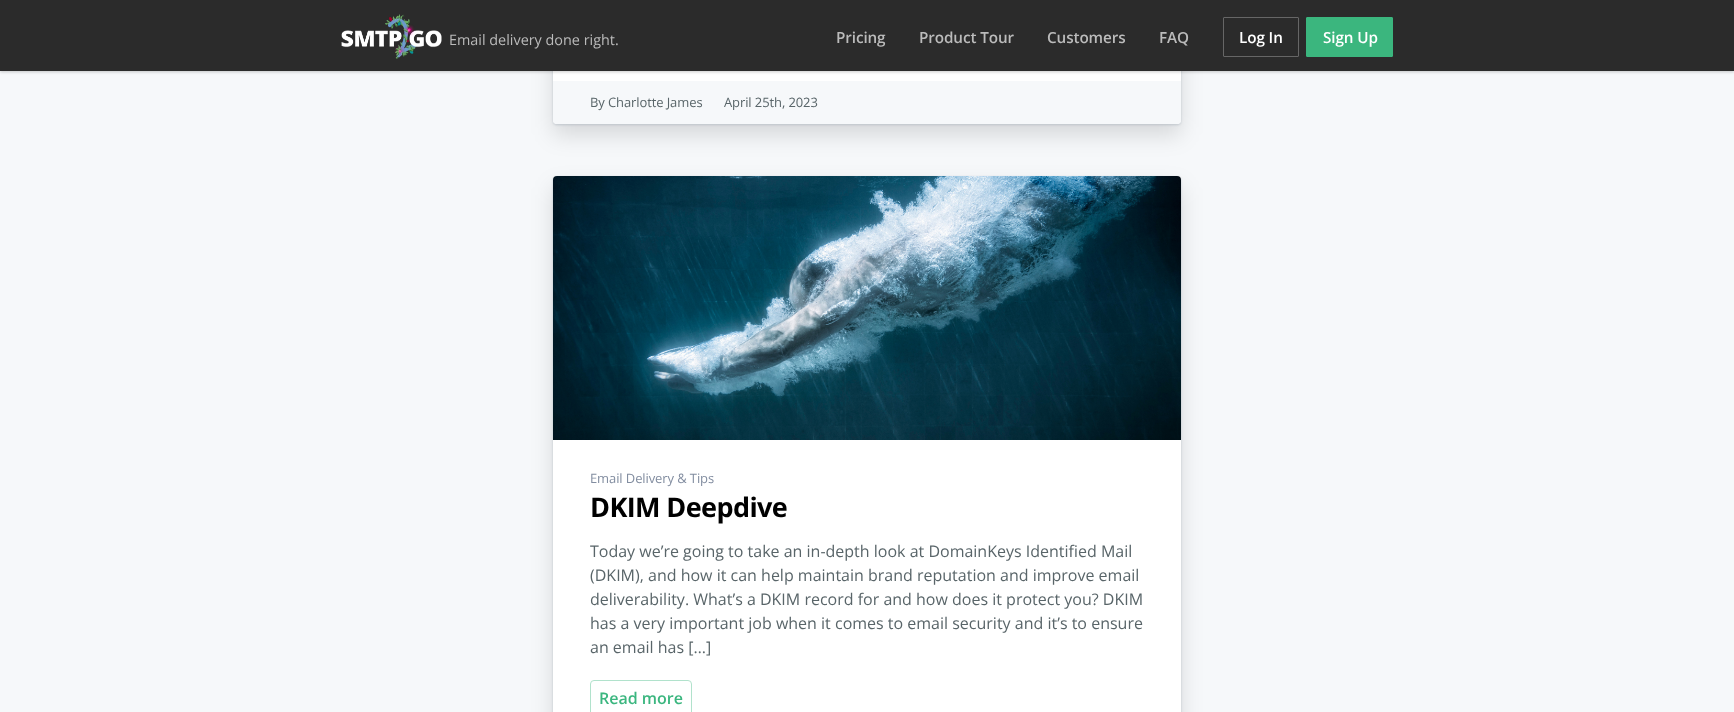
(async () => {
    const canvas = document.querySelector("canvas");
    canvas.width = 1734;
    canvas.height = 712;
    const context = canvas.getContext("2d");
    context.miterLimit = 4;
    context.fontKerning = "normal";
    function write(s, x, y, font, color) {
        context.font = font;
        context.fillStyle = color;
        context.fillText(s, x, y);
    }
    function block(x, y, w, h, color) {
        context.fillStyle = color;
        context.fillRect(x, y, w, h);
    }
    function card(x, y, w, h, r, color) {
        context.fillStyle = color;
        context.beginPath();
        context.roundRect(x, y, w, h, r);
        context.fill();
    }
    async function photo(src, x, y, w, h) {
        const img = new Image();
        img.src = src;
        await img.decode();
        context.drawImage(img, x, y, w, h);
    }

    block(0, 0, 1734, 712, "rgb(246, 248, 250)");
    context.fillStyle = "rgba(0, 0, 0, 0.13)";
    context.filter = "blur(11px)";
    context.beginPath();
    context.roundRect(553, -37, 628, 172, 4);
    context.fill();
    context.filter = "none";
    context.fillStyle = "rgba(174, 184, 193, 0.67)";
    context.filter = "blur(1px)";
    context.beginPath();
    context.roundRect(553, -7, 628, 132, 4);
    context.fill();
    context.filter = "none";
    card(553, -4, 628, 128, 4, "rgb(255, 255, 255)");
    context.fillStyle = "rgba(0, 0, 0, 0.2)";
    context.filter = "blur(1.5px)";
    context.beginPath();
    context.rect(0, 1, 1734, 71);
    context.fill();
    context.filter = "none";
    block(0, 0, 1734, 71, "rgb(43, 43, 43)");
    await photo("media/1.png", 341, 14, 101, 45);
    write("Email delivery done right.", 449, 45, "14.4px Open Sans", "rgb(187, 187, 187)");
    context.letterSpacing = "-0.1px";
    write("Pricing", 836, 43, "600 15.25px Open Sans", "rgb(187, 187, 187)");
    write("Product Tour", 919, 43, "600 15.25px Open Sans", "rgb(187, 187, 187)");
    write("Customers", 1047, 43, "600 15.25px Open Sans", "rgb(187, 187, 187)");
    write("FAQ", 1159, 43, "600 15.25px Open Sans", "rgb(187, 187, 187)");
    context.beginPath();
    context.roundRect(1223.5, 17.5, 75, 39, 0.5);
    context.strokeStyle = "rgb(102, 102, 102)";
    context.stroke();
    write("Log In", 1239, 43, "600 15.25px Open Sans", "rgb(255, 255, 255)");
    context.fillStyle = "rgb(59, 182, 126)";
    context.beginPath();
    context.roundRect(1306.5, 17.5, 86, 39, 0.5);
    context.fill();
    context.strokeStyle = "rgb(59, 182, 126)";
    context.stroke();
    write("Sign Up", 1323, 43, "600 15.25px Open Sans", "rgb(255, 255, 255)");
    context.fillStyle = "rgb(246, 248, 250)";
    context.beginPath();
    context.roundRect(553, 81, 628, 43, [0, 0, 4, 4]);
    context.fill();
    write("By Charlotte James", 590, 107, "13px Open Sans", "rgb(89, 101, 105)");
    write("April 25th, 2023", 724, 107, "13px Open Sans", "rgb(89, 101, 105)");
    context.fillStyle = "rgba(0, 0, 0, 0.13)";
    context.filter = "blur(11px)";
    context.beginPath();
    context.roundRect(553, 187, 628, 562, 4);
    context.fill();
    context.filter = "none";
    context.fillStyle = "rgba(174, 184, 193, 0.67)";
    context.filter = "blur(1px)";
    context.beginPath();
    context.roundRect(553, 177, 628, 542, 4);
    context.fill();
    context.filter = "none";
    card(553, 176, 628, 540, 4, "rgb(255, 255, 255)");
    await photo("media/2.png", 553, 176, 628, 264);
    write("Email Delivery & Tips", 590, 483, "13px Open Sans", "rgb(130, 141, 160)");
    context.letterSpacing = "-0.6px";
    write("DKIM Deepdive", 590, 517, "bold 27px Open Sans", "rgb(0, 0, 0)");
    context.letterSpacing = "0px";
    write("Today we’re going to take an in-depth look at DomainKeys Identified Mail", 590, 557, "16px Open Sans", "rgb(89, 101, 105)");
    write("(DKIM), and how it can help maintain brand reputation and improve email", 590, 581, "16px Open Sans", "rgb(89, 101, 105)");
    write("deliverability. What’s a DKIM record for and how does it protect you? DKIM", 590, 605, "16px Open Sans", "rgb(89, 101, 105)");
    write("has a very important job when it comes to email security and it’s to ensure", 590, 629, "16px Open Sans", "rgb(89, 101, 105)");
    write("an email has […]", 590, 653, "16px Open Sans", "rgb(89, 101, 105)");
    context.beginPath();
    context.roundRect(590.5, 680.5, 101, 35, 3.5);
    context.strokeStyle = "rgb(177, 226, 204)";
    context.stroke();
    write("Read more", 599, 704, "600 16px Open Sans", "rgb(59, 182, 127)");
})();
